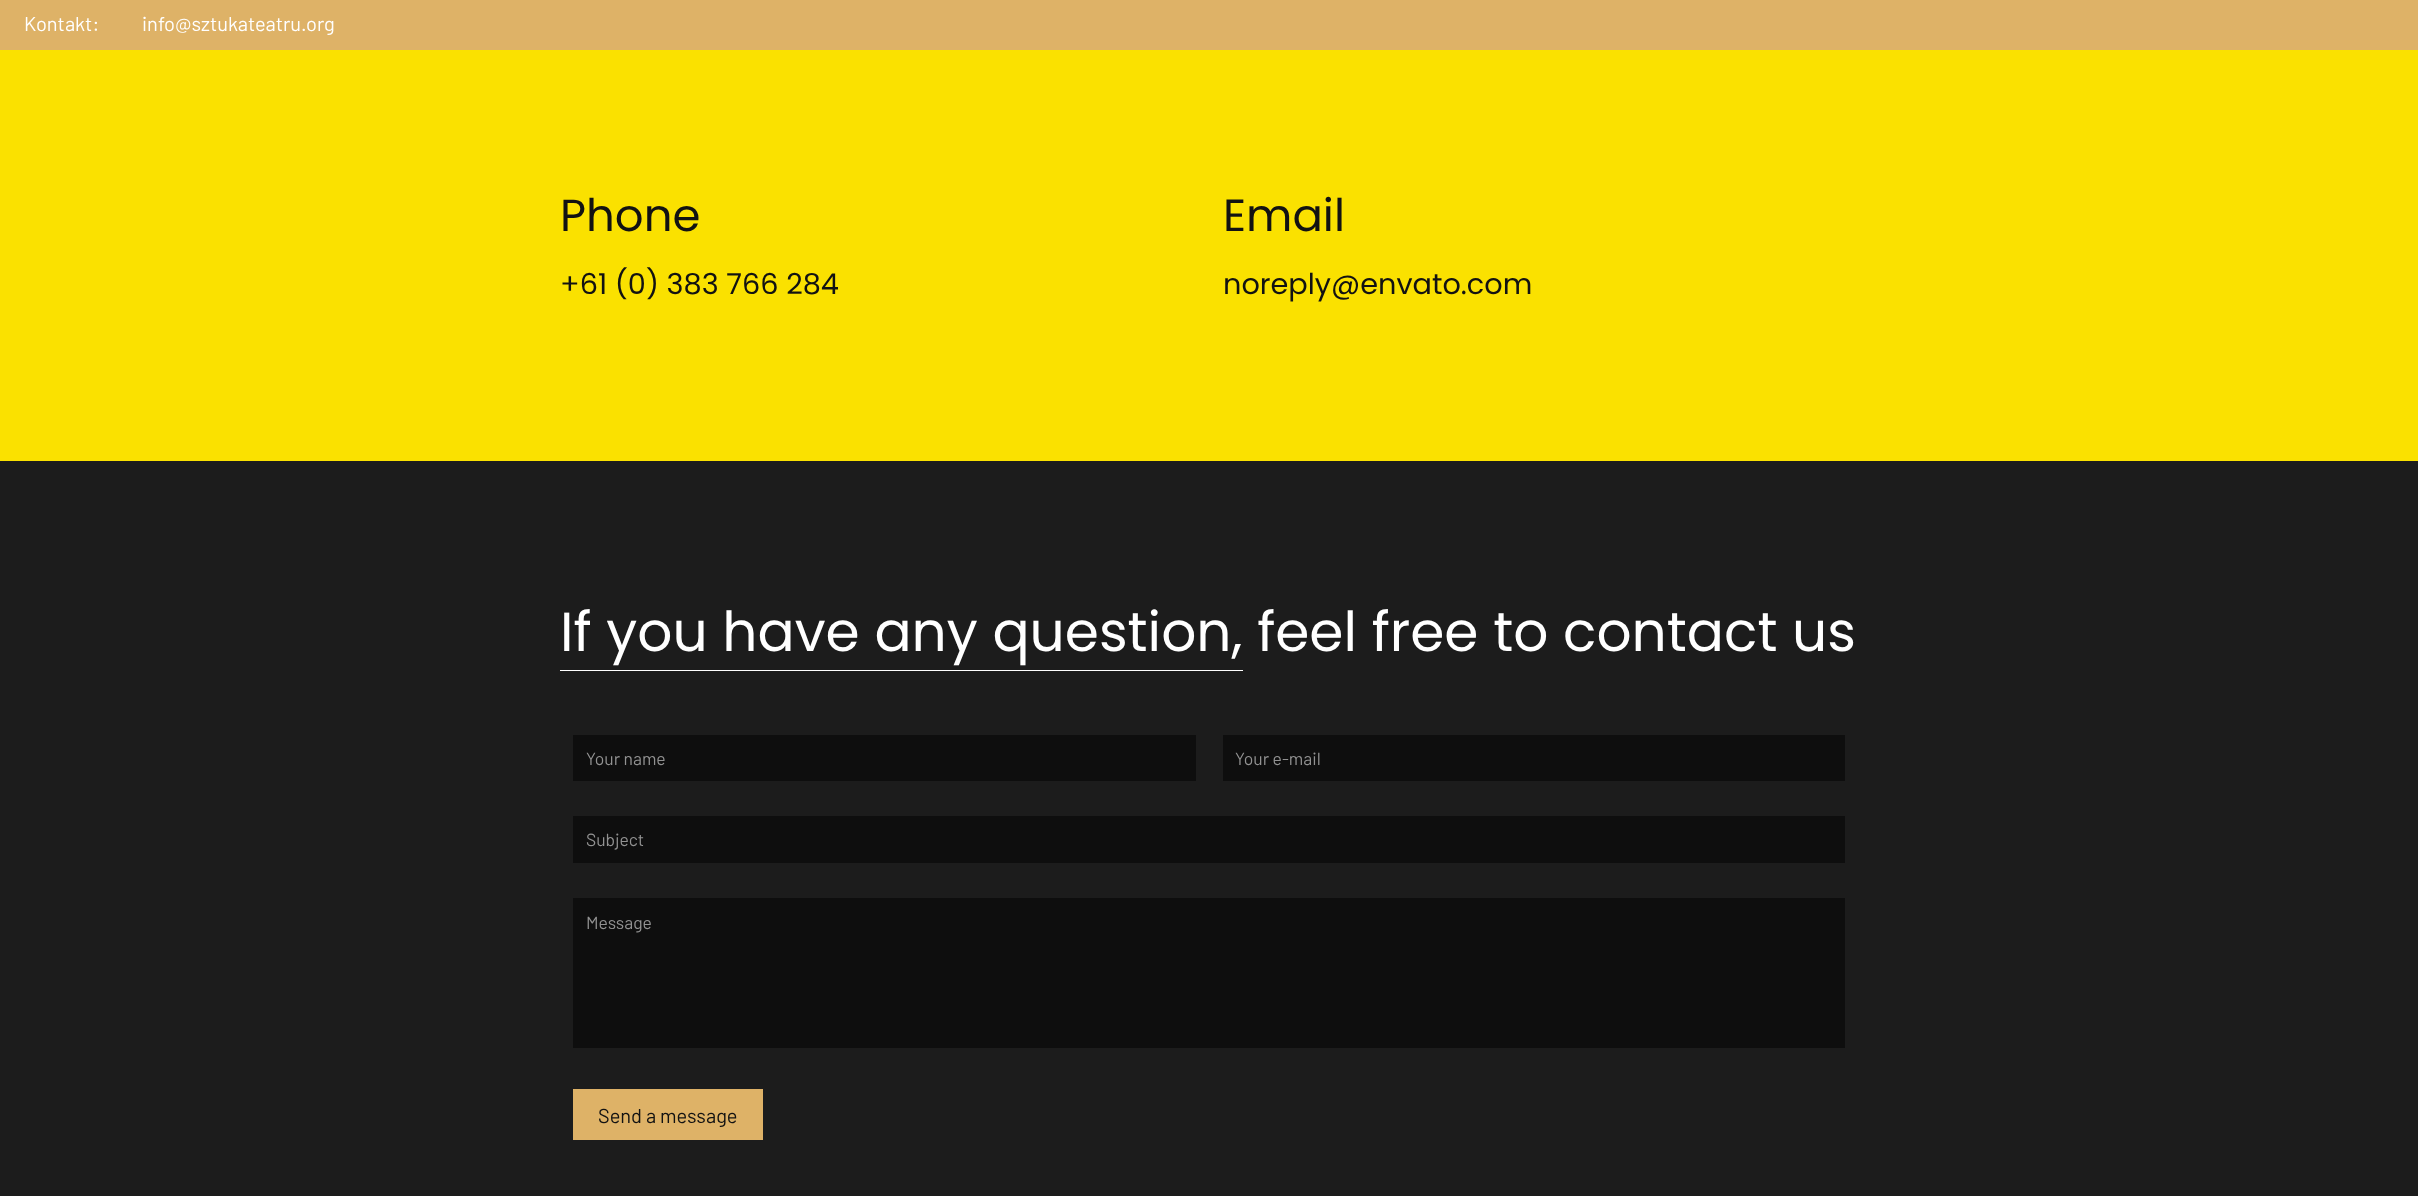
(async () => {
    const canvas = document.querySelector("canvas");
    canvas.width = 2418;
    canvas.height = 1196;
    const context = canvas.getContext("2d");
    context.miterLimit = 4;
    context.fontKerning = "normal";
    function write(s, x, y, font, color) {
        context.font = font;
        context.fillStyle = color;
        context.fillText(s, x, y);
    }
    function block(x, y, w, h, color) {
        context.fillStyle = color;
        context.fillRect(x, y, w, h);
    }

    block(0, 0, 2418, 1196, "rgb(222, 178, 103)");
    write("Kontakt:", 24, 31, "20px Barlow", "rgb(255, 255, 255)");
    write("info@sztukateatru.org", 142, 31, "20px Barlow", "rgb(255, 255, 255)");
    block(0, 50, 2418, 411, "rgb(250, 225, 0)");
    write("Phone", 560, 231, "45px Poppins", "rgb(18, 18, 18)");
    write("+61 (0) 383 766 284", 560, 294, "28.75px Poppins", "rgb(18, 18, 18)");
    write("Email", 1223, 231, "45px Poppins", "rgb(18, 18, 18)");
    write("noreply@envato.com", 1223, 294, "28.75px Poppins", "rgb(18, 18, 18)");
    block(0, 461, 2418, 735, "rgb(28, 28, 28)");
    write("If you have any question, feel free to contact us", 560, 651, "55px Poppins", "rgb(255, 255, 255)");
    block(560, 670, 683, 1, "rgb(255, 255, 255)");
    block(573, 735, 623, 46, "rgb(14, 14, 14)");
    write("Your name", 586, 765, "17.5px Barlow", "rgb(146, 146, 146)");
    block(1223, 735, 622, 46, "rgb(14, 14, 14)");
    write("Your e-mail", 1235, 765, "17.5px Barlow", "rgb(146, 146, 146)");
    block(573, 816, 1272, 47, "rgb(14, 14, 14)");
    write("Subject", 586, 846, "17.5px Barlow", "rgb(146, 146, 146)");
    block(573, 898, 1272, 150, "rgb(14, 14, 14)");
    write("Message", 586, 929, "17.5px Barlow", "rgb(146, 146, 146)");
    block(573, 1089, 190, 51, "rgb(222, 178, 103)");
    write("Send a message", 598, 1123, "20px Barlow", "rgb(18, 18, 18)");
})();
